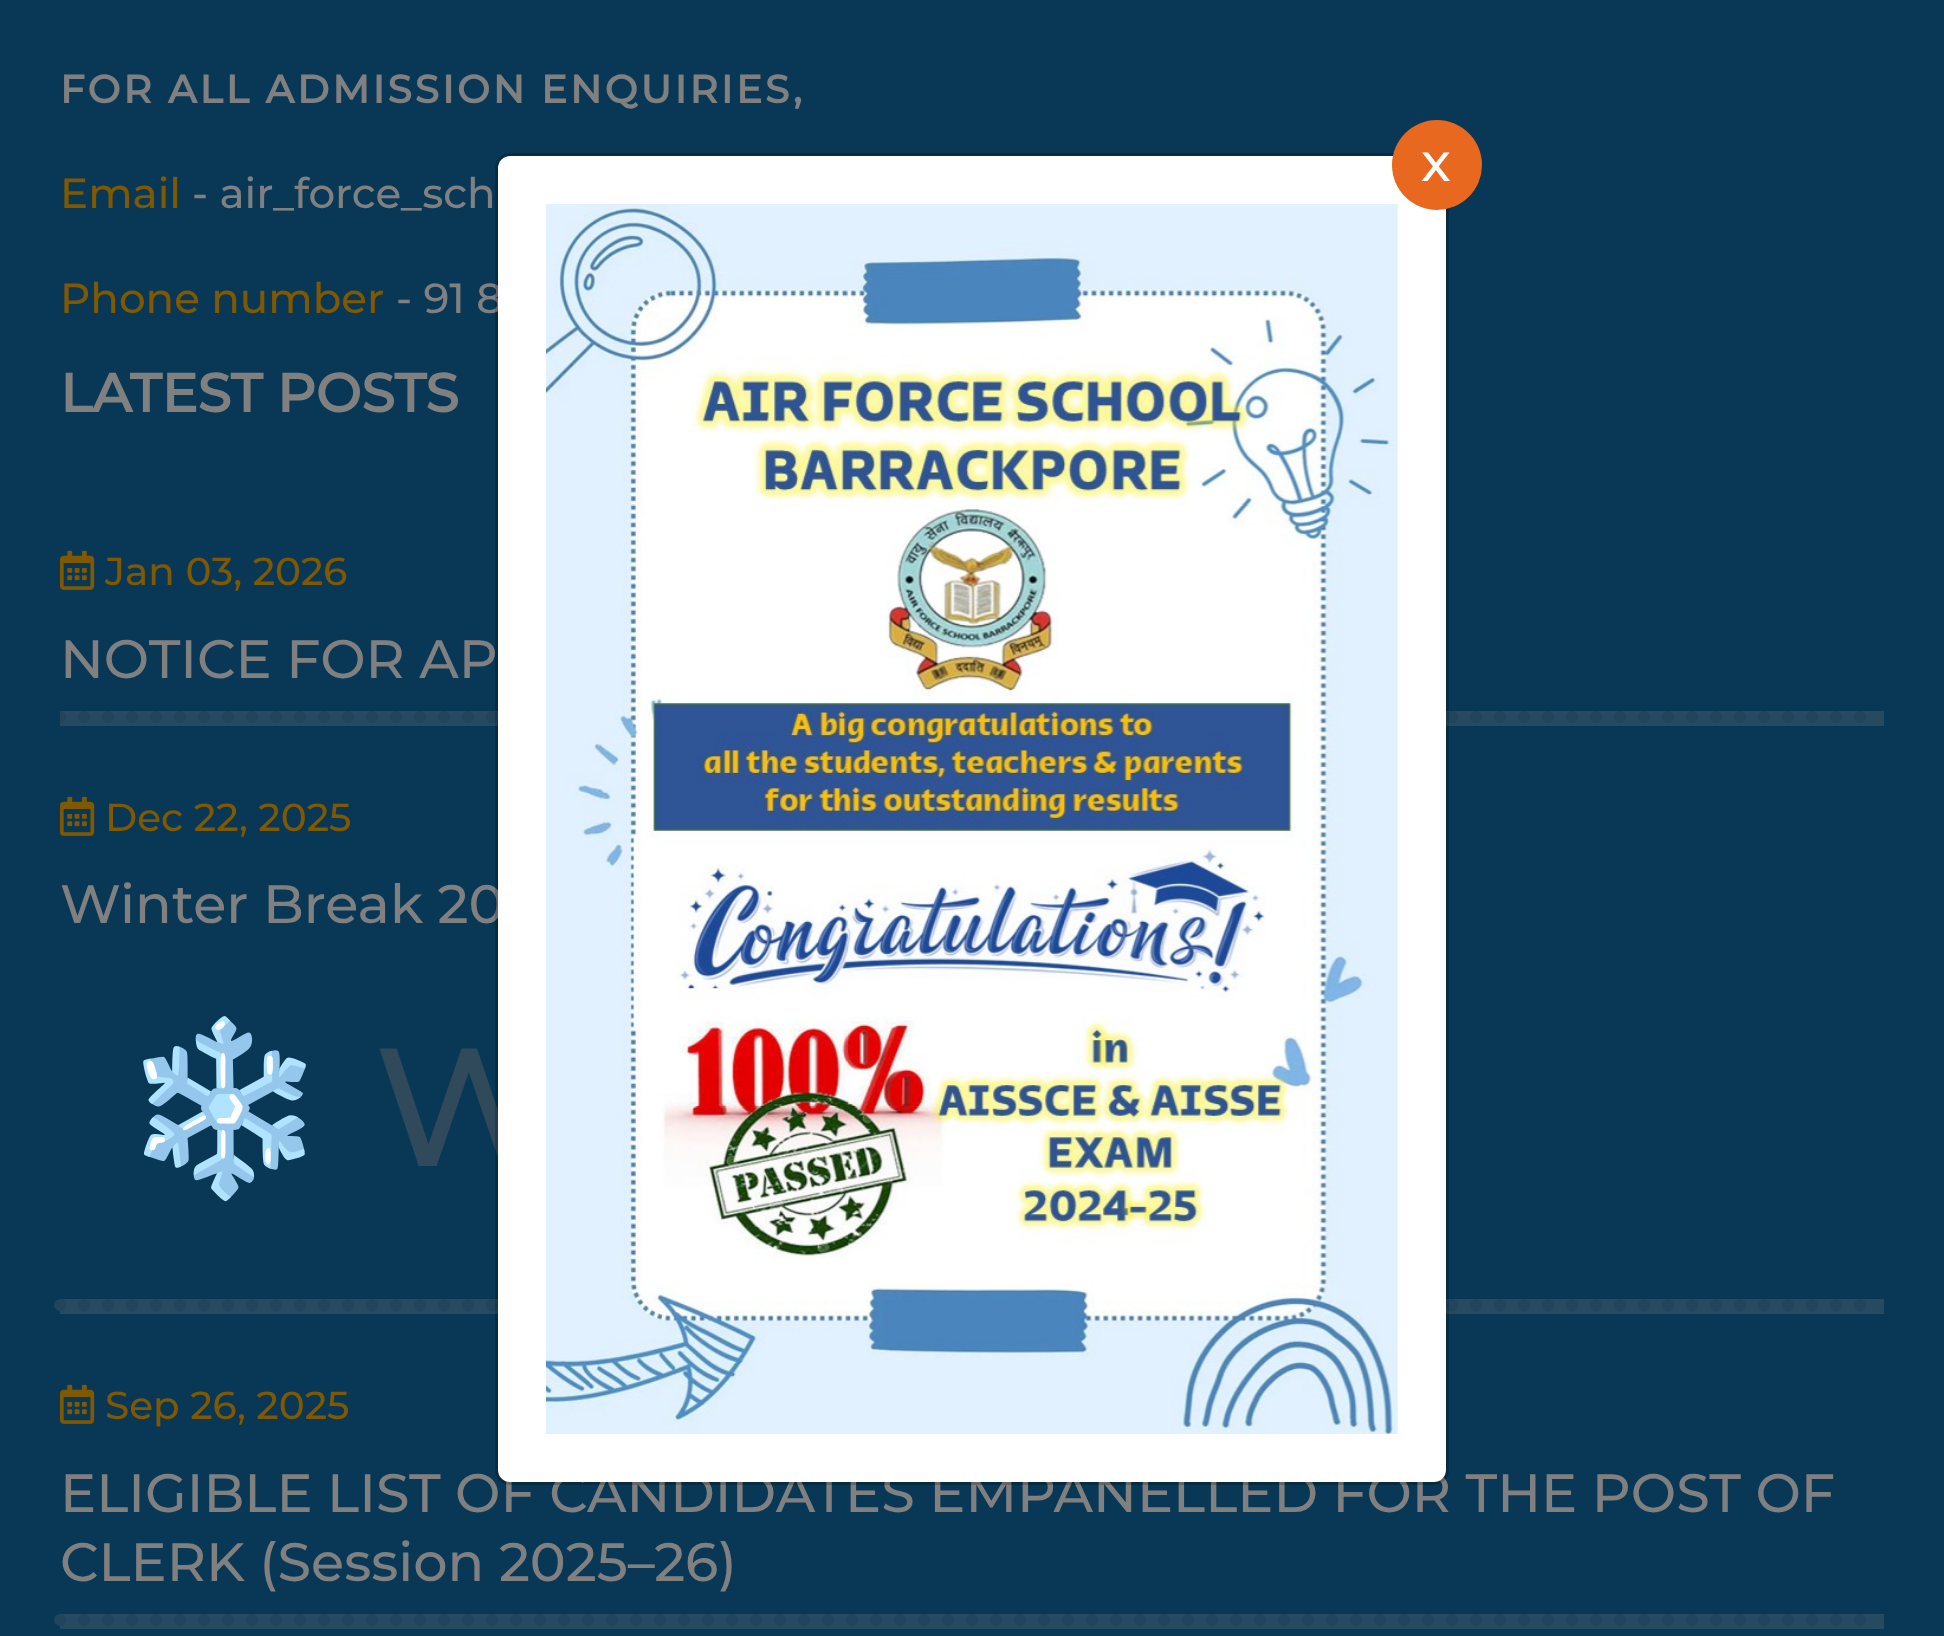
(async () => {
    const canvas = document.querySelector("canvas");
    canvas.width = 1944;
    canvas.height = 1636;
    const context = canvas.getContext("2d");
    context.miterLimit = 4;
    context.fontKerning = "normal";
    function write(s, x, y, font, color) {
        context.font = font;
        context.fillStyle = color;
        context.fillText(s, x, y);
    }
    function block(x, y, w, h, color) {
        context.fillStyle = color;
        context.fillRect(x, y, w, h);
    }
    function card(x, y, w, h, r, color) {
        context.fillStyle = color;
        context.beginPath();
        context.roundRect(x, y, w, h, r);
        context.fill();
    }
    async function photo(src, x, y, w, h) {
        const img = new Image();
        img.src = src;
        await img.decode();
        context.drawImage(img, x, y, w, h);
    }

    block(0, 0, 1944, 1636, "rgb(8, 56, 86)");
    context.letterSpacing = "3px";
    write("FOR ALL ADMISSION ENQUIRIES,", 60, 103, "bold 39px Montserrat", "rgb(128, 128, 128)");
    context.letterSpacing = "0px";
    write("Email", 60, 208, "100 42px Montserrat", "rgb(128, 88, 0)");
    write("- air_force_sch", 192, 208, "100 42px Montserrat", "rgb(128, 128, 128)");
    write("Phone number", 60, 313, "100 42px Montserrat", "rgb(128, 88, 0)");
    write("- 91 8", 396, 313, "100 42px Montserrat", "rgb(128, 128, 128)");
    write("LATEST POSTS", 60, 412, "bold 54px Montserrat", "rgb(128, 128, 128)");
    await photo("media/1.png", 60, 550, 35, 40);
    write("Jan 03, 2026", 105, 585, "100 39px Montserrat", "rgb(128, 88, 0)");
    write("NOTICE FOR AP", 60, 678, "100 54px Montserrat", "rgb(128, 128, 128)");
    block(60, 711, 1824, 15, "rgb(38, 74, 96)");
    context.save();
    context.beginPath();
    context.rect(60, 516, 1824, 783);
    context.clip();
    context.beginPath();
    context.moveTo(60, 717);
    context.lineTo(1884, 717);
    context.strokeStyle = "rgb(32, 69, 93)";
    context.lineWidth = 12;
    context.lineCap = "round";
    context.setLineDash([0, 24]);
    context.stroke();
    context.restore();
    await photo("media/1.png", 60, 796, 35, 40);
    write("Dec 22, 2025", 105, 831, "100 39px Montserrat", "rgb(128, 88, 0)");
    write("Winter Break 20", 60, 923, "100 54px Montserrat", "rgb(128, 128, 128)");
    write("❄️", 120, 1166, "168px Noto Color Emoji", "rgb(48, 74, 91)");
    write("W", 374, 1166, "100 168px Montserrat", "rgb(48, 74, 91)");
    block(60, 1299, 1824, 15, "rgb(38, 74, 96)");
    context.beginPath();
    context.moveTo(60, 1305);
    context.lineTo(1884, 1305);
    context.strokeStyle = "rgb(32, 69, 93)";
    context.lineWidth = 12;
    context.lineCap = "round";
    context.setLineDash([0, 24]);
    context.stroke();
    await photo("media/1.png", 60, 1384, 35, 40);
    write("Sep 26, 2025", 105, 1419, "100 39px Montserrat", "rgb(128, 88, 0)");
    write("ELIGIBLE LIST OF CANDIDATES EMPANELLED FOR THE POST OF", 60, 1512, "100 54px Montserrat", "rgb(128, 128, 128)");
    write("CLERK (Session 2025–26)", 60, 1581, "100 54px Montserrat", "rgb(128, 128, 128)");
    block(60, 1614, 1824, 15, "rgb(38, 74, 96)");
    context.beginPath();
    context.moveTo(60, 1620);
    context.lineTo(1884, 1620);
    context.stroke();
    card(498, 156, 948, 1326, 12, "rgb(255, 255, 255)");
    context.beginPath();
    context.roundRect(496.5, 154.5, 951, 1329, 13.5);
    context.strokeStyle = "rgba(0, 0, 0, 0.2)";
    context.lineWidth = 3;
    context.setLineDash([]);
    context.stroke();
    await photo("media/2.png", 546, 204, 852, 1230);
    context.fillStyle = "rgb(233, 104, 31)";
    context.beginPath();
    context.arc(1437, 165, 45, 0, Math.PI * 2);
    context.fill();
    write("x", 1421, 181, "100 54px Montserrat", "rgb(255, 255, 255)");
})();
